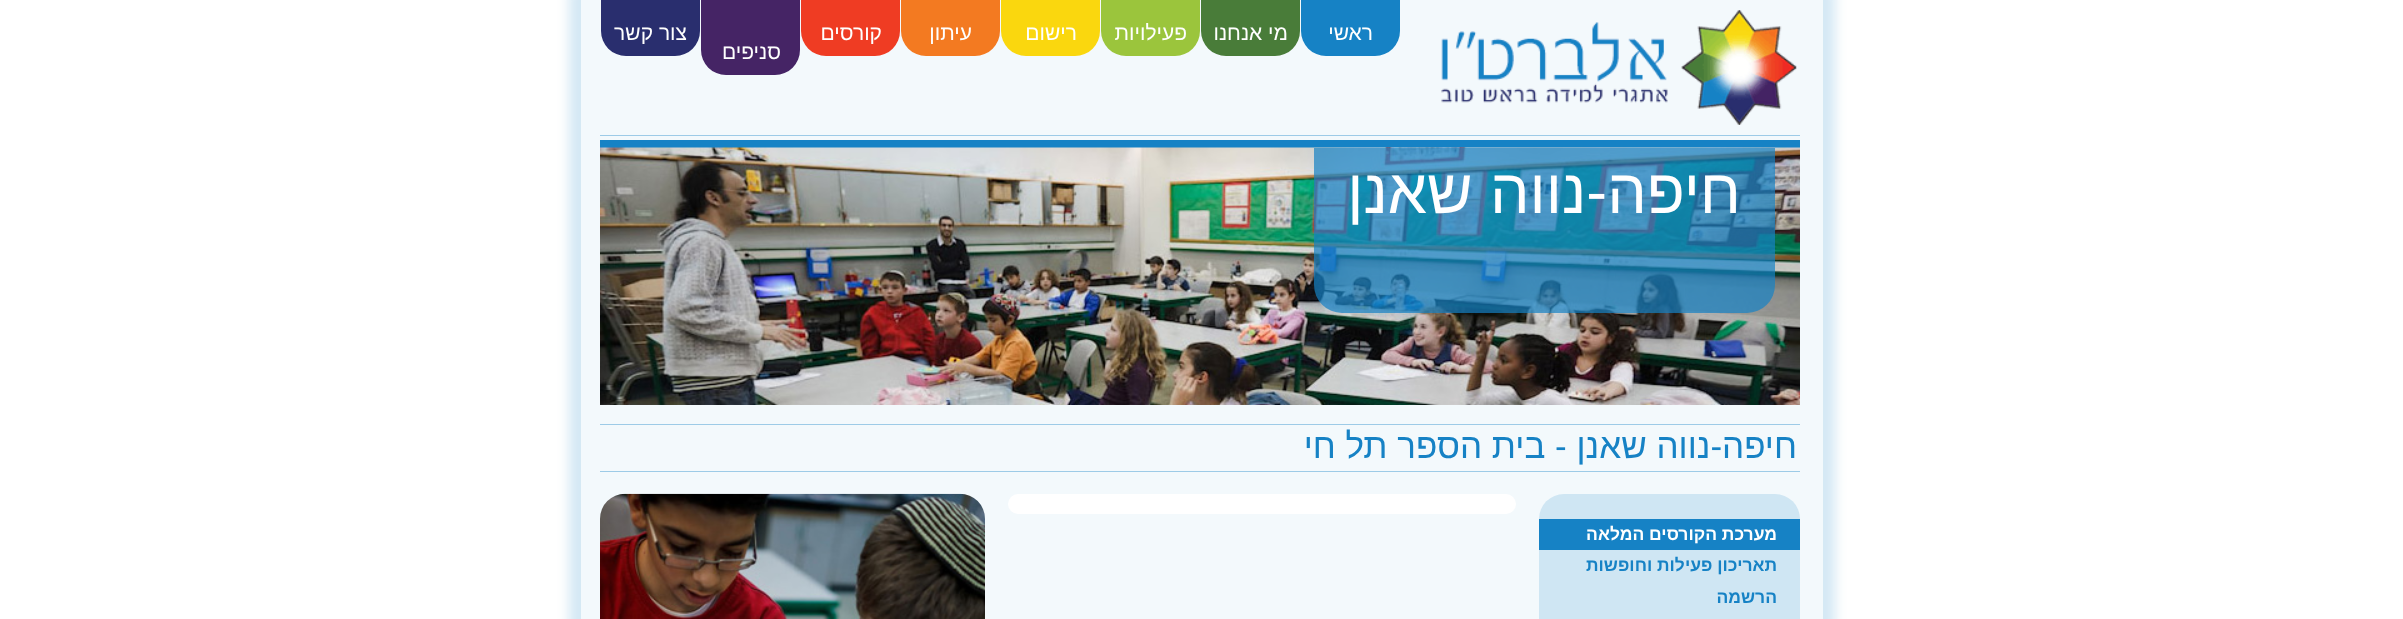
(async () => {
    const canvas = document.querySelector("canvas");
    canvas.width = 2403;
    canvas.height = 619;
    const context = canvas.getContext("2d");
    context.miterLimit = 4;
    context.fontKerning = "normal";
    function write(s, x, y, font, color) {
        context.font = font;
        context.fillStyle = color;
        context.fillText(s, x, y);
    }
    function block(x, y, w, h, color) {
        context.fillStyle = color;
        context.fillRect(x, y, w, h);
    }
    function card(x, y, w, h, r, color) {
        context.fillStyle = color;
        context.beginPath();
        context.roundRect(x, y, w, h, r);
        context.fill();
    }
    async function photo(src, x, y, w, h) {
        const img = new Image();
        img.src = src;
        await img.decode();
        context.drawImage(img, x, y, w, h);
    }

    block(0, 0, 2403, 619, "rgb(255, 255, 255)");
    context.fillStyle = "rgb(212, 232, 244)";
    context.filter = "blur(6px)";
    context.beginPath();
    context.rect(569, -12, 1266, 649);
    context.fill();
    context.filter = "none";
    block(581, 0, 1242, 619, "rgb(243, 249, 252)");
    block(600, 135, 1200, 1, "rgb(157, 203, 231)");
    await photo("media/1.png", 1441, 10, 356, 115);
    context.fillStyle = "rgb(22, 130, 197)";
    context.beginPath();
    context.roundRect(1301, 0, 99, 56, [0, 0, 25, 25]);
    context.fill();
    context.direction = "rtl";
    write("ראשי", 1373, 40, "21px Liberation Sans", "rgb(255, 255, 255)");
    context.fillStyle = "rgb(73, 124, 57)";
    context.beginPath();
    context.roundRect(1201, 0, 99, 56, [0, 0, 25, 25]);
    context.fill();
    write("מי אנחנו", 1288, 40, "21px Liberation Sans", "rgb(255, 255, 255)");
    context.fillStyle = "rgb(155, 197, 60)";
    context.beginPath();
    context.roundRect(1101, 0, 99, 56, [0, 0, 25, 25]);
    context.fill();
    write("פעילויות", 1187, 40, "21px Liberation Sans", "rgb(255, 255, 255)");
    context.fillStyle = "rgb(250, 215, 14)";
    context.beginPath();
    context.roundRect(1001, 0, 99, 56, [0, 0, 25, 25]);
    context.fill();
    write("רישום", 1077, 40, "21px Liberation Sans", "rgb(255, 255, 255)");
    context.fillStyle = "rgb(243, 122, 33)";
    context.beginPath();
    context.roundRect(901, 0, 99, 56, [0, 0, 25, 25]);
    context.fill();
    write("עיתון", 972, 40, "21px Liberation Sans", "rgb(255, 255, 255)");
    context.fillStyle = "rgb(239, 60, 35)";
    context.beginPath();
    context.roundRect(801, 0, 99, 56, [0, 0, 25, 25]);
    context.fill();
    write("קורסים", 882, 40, "21px Liberation Sans", "rgb(255, 255, 255)");
    context.fillStyle = "rgb(41, 46, 110)";
    context.beginPath();
    context.roundRect(601, 0, 99, 56, [0, 0, 25, 25]);
    context.fill();
    write("צור קשר", 687, 40, "21px Liberation Sans", "rgb(255, 255, 255)");
    context.fillStyle = "rgb(69, 36, 101)";
    context.beginPath();
    context.roundRect(701, 0, 99, 75, [0, 0, 25, 25]);
    context.fill();
    write("סניפים", 781, 59, "21px Liberation Sans", "rgb(255, 255, 255)");
    block(600, 140, 1200, 8, "rgb(22, 130, 197)");
    await photo("media/2.png", 600, 147, 1200, 258);
    context.fillStyle = "rgba(22, 130, 197, 0.7)";
    context.beginPath();
    context.roundRect(1314, 148, 461, 165, [0, 0, 28, 28]);
    context.fill();
    write("חיפה-נווה שאנן", 1741, 213, "62.5px Liberation Sans", "rgb(255, 255, 255)");
    block(600, 424, 1200, 1, "rgb(157, 203, 231)");
    block(600, 471, 1200, 1, "rgb(157, 203, 231)");
    write("חיפה-נווה שאנן - בית הספר תל חי", 1797, 458, "35px Liberation Sans", "rgb(22, 130, 197)");
    card(1008, 494, 508, 20, 10, "rgb(255, 255, 255)");
    await photo("media/3.png", 600, 493, 385, 126);
    card(1539, 494, 261, 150, 25, "rgb(207, 230, 243)");
    block(1539, 519, 261, 31, "rgb(22, 130, 197)");
    write("מערכת הקורסים המלאה", 1777, 540, "bold 17.5px Liberation Sans", "rgb(255, 255, 255)");
    write("תאריכון פעילות וחופשות", 1777, 571, "bold 17.5px Liberation Sans", "rgb(22, 130, 197)");
    write("הרשמה", 1777, 603, "bold 17.5px Liberation Sans", "rgb(22, 130, 197)");
})();
